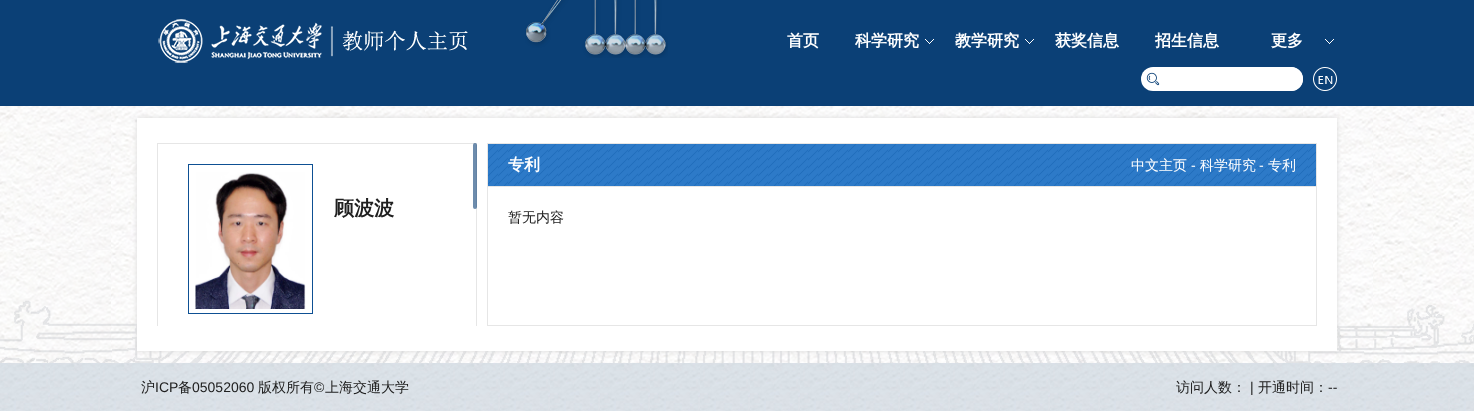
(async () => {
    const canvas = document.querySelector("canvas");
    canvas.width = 1474;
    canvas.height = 411;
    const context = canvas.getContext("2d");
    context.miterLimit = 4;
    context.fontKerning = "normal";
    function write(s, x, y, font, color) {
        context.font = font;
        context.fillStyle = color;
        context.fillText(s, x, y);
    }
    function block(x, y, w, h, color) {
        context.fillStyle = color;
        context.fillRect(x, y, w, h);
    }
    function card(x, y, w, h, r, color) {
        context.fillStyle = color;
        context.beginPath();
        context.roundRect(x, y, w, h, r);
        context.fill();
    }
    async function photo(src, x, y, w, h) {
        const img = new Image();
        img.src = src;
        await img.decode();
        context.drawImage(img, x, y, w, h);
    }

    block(0, 0, 1474, 411, "rgb(255, 255, 255)");
    await photo("media/1.png", 0, 106, 1474, 257);
    block(0, 0, 1474, 106, "rgb(11, 64, 118)");
    await photo("media/2.png", 158, 19, 310, 44);
    await photo("media/3.png", 525, 0, 143, 58);
    write("首页", 787, 46, "bold 16px WenQuanYi Zen Hei", "rgb(255, 255, 255)");
    write("科学研究", 855, 46, "bold 16px WenQuanYi Zen Hei", "rgb(255, 255, 255)");
    await photo("media/4.png", 925, 39, 9, 5);
    write("教学研究", 955, 46, "bold 16px WenQuanYi Zen Hei", "rgb(255, 255, 255)");
    await photo("media/4.png", 1025, 39, 9, 5);
    write("获奖信息", 1055, 46, "bold 16px WenQuanYi Zen Hei", "rgb(255, 255, 255)");
    write("招生信息", 1155, 46, "bold 16px WenQuanYi Zen Hei", "rgb(255, 255, 255)");
    write("更多", 1271, 46, "bold 16px WenQuanYi Zen Hei", "rgb(255, 255, 255)");
    await photo("media/4.png", 1325, 39, 9, 5);
    await photo("media/6.png", 1291, 67, 12, 24);
    card(1141, 67, 162, 24, 12, "rgb(255, 255, 255)");
    await photo("media/5.png", 1146, 72, 14, 14);
    await photo("media/7.png", 1313, 67, 24, 24);
    context.fillStyle = "rgb(216, 216, 216)";
    context.filter = "blur(2.5px)";
    context.beginPath();
    context.rect(137, 118, 1200, 233);
    context.fill();
    context.filter = "none";
    block(137, 118, 1200, 233, "rgb(255, 255, 255)");
    await photo("media/10.png", 0, 363, 1474, 48);
    context.save();
    context.beginPath();
    context.rect(157, 143, 320, 183);
    context.clip();
    context.strokeStyle = "rgb(230, 230, 230)";
    context.strokeRect(157.5, 143.5, 319, 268);
    context.restore();
    card(473, 143, 4, 66, 2, "rgba(11, 64, 118, 0.6)");
    context.strokeStyle = "rgb(14, 80, 147)";
    context.strokeRect(188.5, 164.5, 124, 149);
    await photo("media/8.png", 195, 172, 111, 137);
    write("顾波波", 334, 215, "bold 20px WenQuanYi Zen Hei", "rgb(32, 32, 32)");
    context.strokeStyle = "rgb(230, 230, 230)";
    context.strokeRect(487.5, 143.5, 829, 182);
    await photo("media/9.png", 488, 144, 828, 42);
    block(488, 186, 828, 1, "rgb(230, 230, 230)");
    write("专利", 508, 170, "bold 16px WenQuanYi Zen Hei", "rgb(255, 255, 255)");
    write("中文主页", 1131, 170, "500 14px WenQuanYi Zen Hei", "rgb(255, 255, 255)");
    write("-", 1191, 170, "14px Liberation Sans", "rgb(255, 255, 255)");
    write("科学研究", 1200, 170, "500 14px WenQuanYi Zen Hei", "rgb(255, 255, 255)");
    write("-", 1259, 170, "14px Liberation Sans", "rgb(255, 255, 255)");
    write("专利", 1268, 170, "500 14px WenQuanYi Zen Hei", "rgb(255, 255, 255)");
    write("暂无内容", 508, 222, "500 14px WenQuanYi Zen Hei", "rgb(32, 32, 32)");
    write("沪", 141, 392, "500 14px WenQuanYi Zen Hei", "rgb(32, 32, 32)");
    write("ICP", 155, 392, "14px Liberation Sans", "rgb(32, 32, 32)");
    write("备", 178, 392, "500 14px WenQuanYi Zen Hei", "rgb(32, 32, 32)");
    write("05052060", 192, 392, "14px Liberation Sans", "rgb(32, 32, 32)");
    write("版权所有", 258, 392, "500 14px WenQuanYi Zen Hei", "rgb(32, 32, 32)");
    write("©", 314, 392, "14px Liberation Sans", "rgb(32, 32, 32)");
    write("上海交通大学", 325, 392, "500 14px WenQuanYi Zen Hei", "rgb(32, 32, 32)");
    write("访问人数：", 1176, 392, "500 14px WenQuanYi Zen Hei", "rgb(32, 32, 32)");
    write("|", 1250, 392, "14px Liberation Sans", "rgb(32, 32, 32)");
    write("开通时间：", 1258, 392, "500 14px WenQuanYi Zen Hei", "rgb(32, 32, 32)");
    write("--", 1328, 392, "14px Liberation Sans", "rgb(32, 32, 32)");
})();
